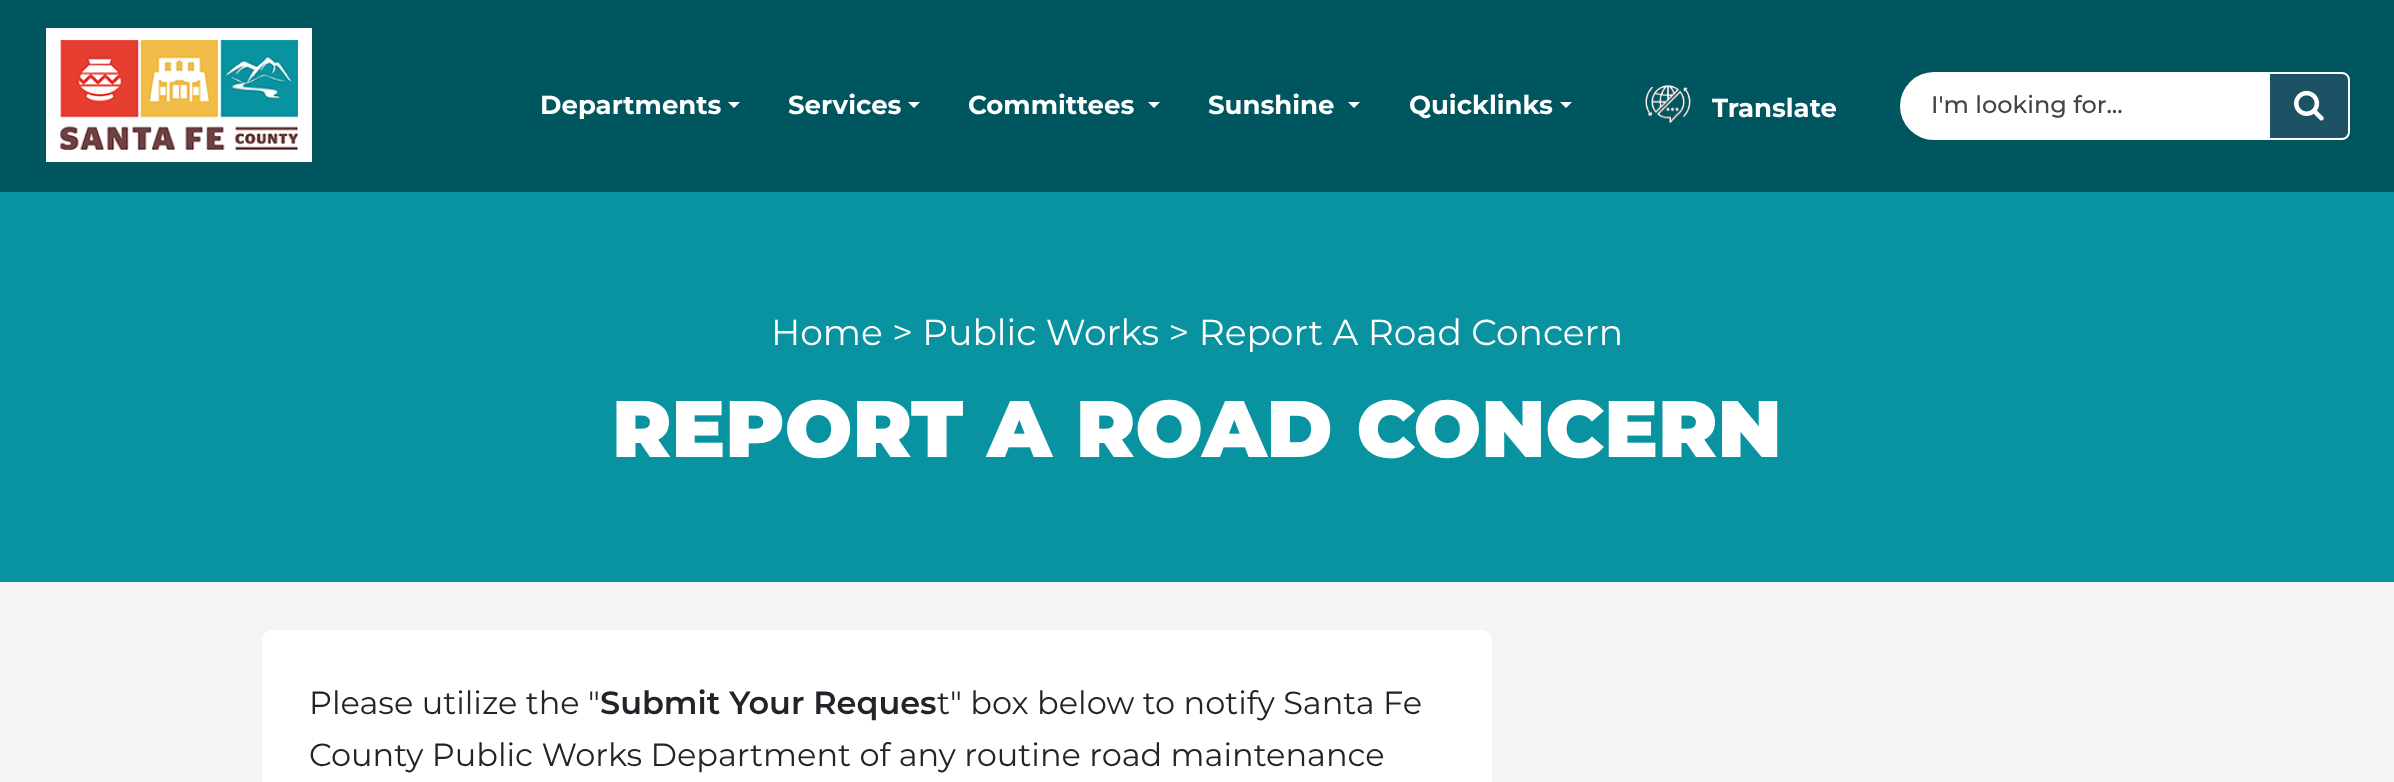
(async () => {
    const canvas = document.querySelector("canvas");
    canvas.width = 2394;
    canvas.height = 782;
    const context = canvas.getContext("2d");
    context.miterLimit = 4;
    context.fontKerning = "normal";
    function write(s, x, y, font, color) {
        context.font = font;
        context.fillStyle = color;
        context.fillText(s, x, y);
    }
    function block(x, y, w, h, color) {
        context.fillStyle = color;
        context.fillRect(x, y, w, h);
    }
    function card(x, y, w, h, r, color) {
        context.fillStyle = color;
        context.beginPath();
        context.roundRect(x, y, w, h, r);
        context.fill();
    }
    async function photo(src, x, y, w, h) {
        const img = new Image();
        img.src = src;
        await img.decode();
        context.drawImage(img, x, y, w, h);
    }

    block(0, 0, 2394, 782, "rgb(244, 244, 244)");
    block(0, 0, 2394, 192, "rgb(0, 86, 95)");
    block(46, 28, 266, 134, "rgb(255, 255, 255)");
    await photo("media/1.png", 60, 40, 238, 110);
    write("Departments", 540, 114, "bold 26px Montserrat", "rgb(255, 255, 255)");
    context.beginPath();
    context.moveTo(728, 102);
    context.lineTo(740, 102);
    context.lineTo(734, 108);
    context.closePath();
    context.fill();
    write("Services", 788, 114, "bold 26px Montserrat", "rgb(255, 255, 255)");
    context.beginPath();
    context.moveTo(908, 102);
    context.lineTo(920, 102);
    context.lineTo(914, 108);
    context.closePath();
    context.fill();
    write("Committees", 968, 114, "bold 26px Montserrat", "rgb(255, 255, 255)");
    context.beginPath();
    context.moveTo(1148, 102);
    context.lineTo(1160, 102);
    context.lineTo(1154, 108);
    context.closePath();
    context.fill();
    write("Sunshine", 1208, 114, "bold 26px Montserrat", "rgb(255, 255, 255)");
    context.beginPath();
    context.moveTo(1348, 102);
    context.lineTo(1360, 102);
    context.lineTo(1354, 108);
    context.closePath();
    context.fill();
    write("Quicklinks", 1409, 114, "bold 26px Montserrat", "rgb(255, 255, 255)");
    context.beginPath();
    context.moveTo(1560, 102);
    context.lineTo(1572, 102);
    context.lineTo(1566, 108);
    context.closePath();
    context.fill();
    await photo("media/2.png", 1645, 85, 46, 39);
    write("Translate", 1712, 117, "bold 26px Montserrat", "rgb(255, 255, 255)");
    context.beginPath();
    context.roundRect(1900, 72, 370, 68, [34, 0, 0, 34]);
    context.fill();
    write("I'm looking for...", 1931, 113, "500 24px Montserrat", "rgb(68, 68, 68)");
    context.fillStyle = "rgb(29, 82, 100)";
    context.beginPath();
    context.roundRect(2269, 73, 80, 66, [0, 7, 7, 0]);
    context.fill();
    context.strokeStyle = "rgb(255, 255, 255)";
    context.lineWidth = 2;
    context.stroke();
    await photo("media/3.png", 2294, 90, 30, 31);
    block(0, 192, 2394, 390, "rgb(9, 147, 160)");
    write("Home > Public Works > Report A Road Concern", 771, 345, "36px Montserrat", "rgb(255, 255, 255)");
    write("REPORT A ROAD CONCERN", 612, 457, "900 79.9px Montserrat", "rgb(255, 255, 255)");
    card(262, 630, 1230, 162, 10, "rgb(255, 255, 255)");
    write("Please utilize the \"", 309, 714, "32px Montserrat", "rgb(33, 37, 41)");
    write("Submit Your Reques", 600, 714, "600 32px Montserrat", "rgb(33, 37, 41)");
    write("t\" box below to notify Santa Fe", 937, 714, "32px Montserrat", "rgb(33, 37, 41)");
    write("County Public Works Department of any routine road maintenance", 309, 766, "32px Montserrat", "rgb(33, 37, 41)");
})();
